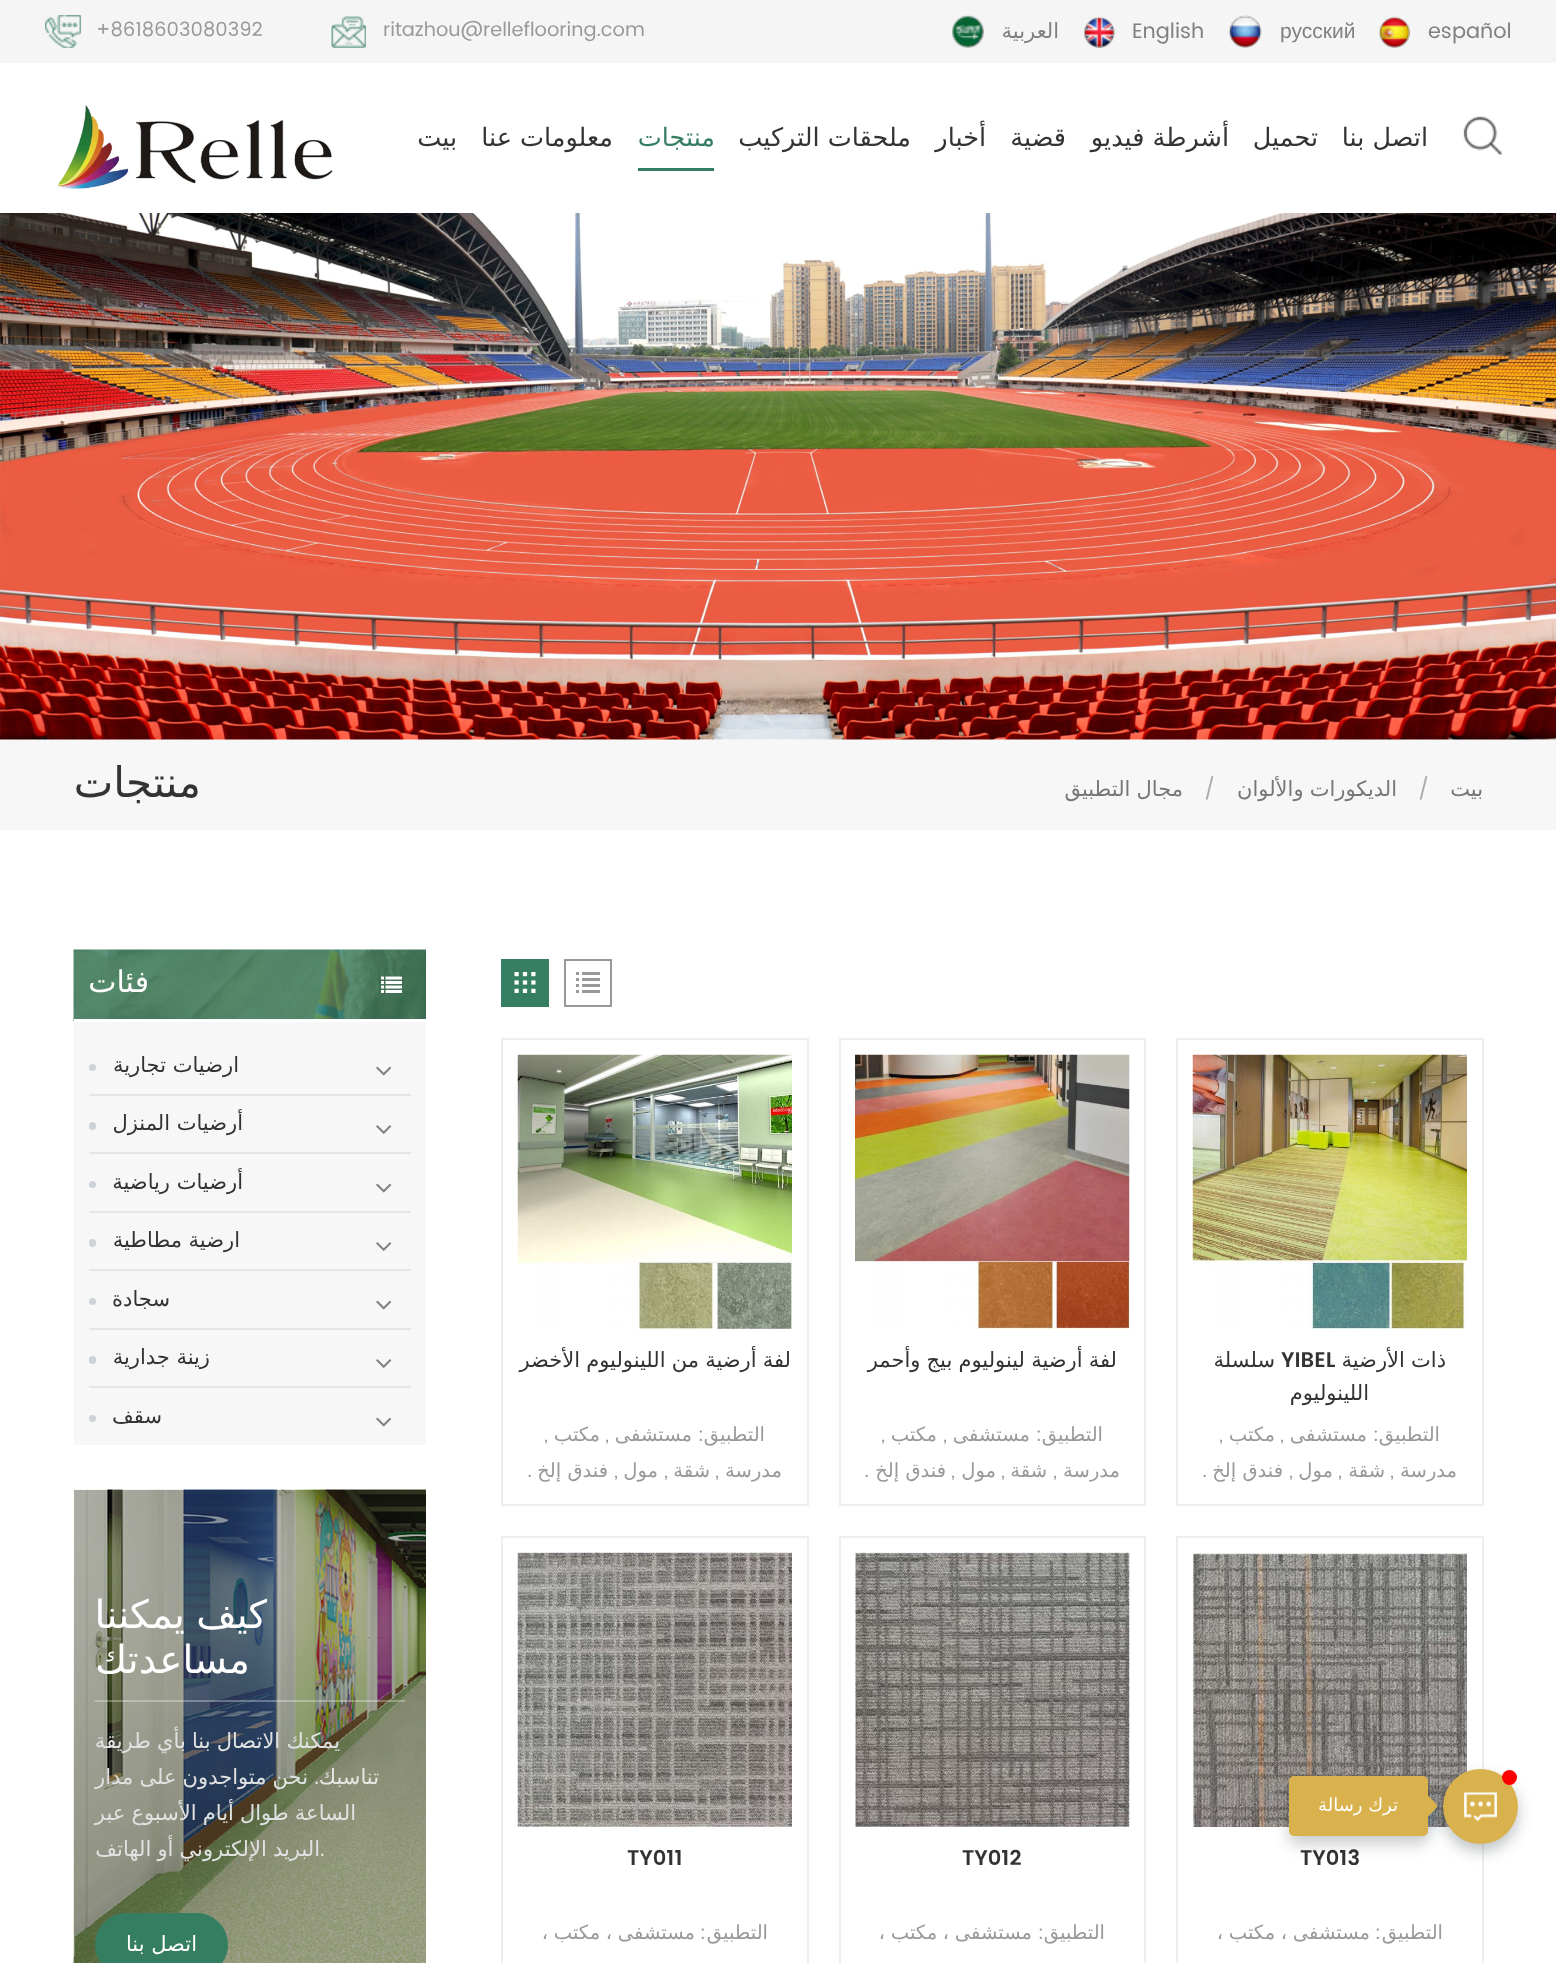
(async () => {
    const canvas = document.querySelector("canvas");
    canvas.width = 1556;
    canvas.height = 1963;
    const context = canvas.getContext("2d");
    context.miterLimit = 4;
    context.fontKerning = "normal";
    function write(s, x, y, font, color) {
        context.font = font;
        context.fillStyle = color;
        context.fillText(s, x, y);
    }
    function block(x, y, w, h, color) {
        context.fillStyle = color;
        context.fillRect(x, y, w, h);
    }
    function card(x, y, w, h, r, color) {
        context.fillStyle = color;
        context.beginPath();
        context.roundRect(x, y, w, h, r);
        context.fill();
    }
    async function photo(src, x, y, w, h) {
        const img = new Image();
        img.src = src;
        await img.decode();
        context.drawImage(img, x, y, w, h);
    }

    block(0, 0, 1556, 1963, "rgb(255, 255, 255)");
    block(0, 0, 1556, 63, "rgb(245, 245, 245)");
    write("español", 1428, 38, "21px Poppins", "rgb(128, 128, 128)");
    await photo("media/1.png", 1378, 16, 32, 32);
    write("русский", 1280, 38, "21px Liberation Sans", "rgb(128, 128, 128)");
    await photo("media/2.png", 1228, 15, 34, 33);
    write("English", 1132, 38, "21px Poppins", "rgb(128, 128, 128)");
    await photo("media/3.png", 1084, 16, 31, 32);
    context.direction = "rtl";
    write("العربية", 1059, 38, "21px DejaVu Sans", "rgb(128, 128, 128)");
    await photo("media/4.png", 952, 15, 32, 33);
    await photo("media/5.png", 331, 16, 35, 32);
    context.direction = "ltr";
    write("ritazhou@relleflooring.com", 383, 36, "19.5px Poppins", "rgb(153, 153, 153)");
    await photo("media/6.png", 45, 15, 36, 33);
    write("+8618603080392", 96, 36, "19.5px Poppins", "rgb(153, 153, 153)");
    await photo("media/7.png", 1463, 116, 39, 39);
    context.direction = "rtl";
    write("اتصل بنا", 1428, 146, "25.5px DejaVu Sans", "rgb(51, 51, 51)");
    write("تحميل", 1318, 146, "25.5px DejaVu Sans", "rgb(51, 51, 51)");
    write("أشرطة فيديو", 1229, 146, "25.5px DejaVu Sans", "rgb(51, 51, 51)");
    write("قضية", 1066, 146, "25.5px DejaVu Sans", "rgb(51, 51, 51)");
    write("أخبار", 986, 146, "25.5px DejaVu Sans", "rgb(51, 51, 51)");
    write("ملحقات التركيب", 911, 146, "25.5px DejaVu Sans", "rgb(51, 51, 51)");
    write("منتجات", 715, 146, "25.5px DejaVu Sans", "rgb(54, 126, 98)");
    block(638, 168, 76, 3, "rgb(54, 126, 98)");
    write("معلومات عنا", 613, 146, "25.5px DejaVu Sans", "rgb(51, 51, 51)");
    write("بيت", 457, 146, "25.5px DejaVu Sans", "rgb(51, 51, 51)");
    await photo("media/8.png", 57, 105, 276, 84);
    await photo("media/9.png", 0, 213, 1556, 527);
    block(0, 740, 1556, 90, "rgb(247, 247, 247)");
    write("بيت", 1483, 796, "21px DejaVu Sans", "rgb(119, 119, 119)");
    context.direction = "ltr";
    write("/", 1418, 796, "21px Poppins", "rgb(170, 170, 170)");
    context.wordSpacing = "-0.5px";
    context.direction = "rtl";
    write("الديكورات والألوان", 1397, 796, "21px DejaVu Sans", "rgb(119, 119, 119)");
    context.wordSpacing = "0px";
    context.direction = "ltr";
    write("/", 1204, 796, "21px Poppins", "rgb(170, 170, 170)");
    context.wordSpacing = "-0.5px";
    context.direction = "rtl";
    write("مجال التطبيق", 1183, 796, "21px DejaVu Sans", "rgb(119, 119, 119)");
    context.wordSpacing = "0px";
    write("منتجات", 201, 797, "42px DejaVu Sans", "rgb(51, 51, 51)");
    context.strokeStyle = "rgb(153, 153, 153)";
    context.lineWidth = 2;
    context.strokeRect(565, 960, 46, 46);
    await photo("media/10.png", 576, 972, 24, 21);
    block(501, 959, 48, 48, "rgb(54, 126, 98)");
    await photo("media/11.png", 514, 972, 22, 21);
    context.strokeStyle = "rgb(238, 238, 238)";
    context.strokeRect(1177, 1039, 306, 466);
    await photo("media/12.png", 1192, 1054, 275, 275);
    context.wordSpacing = "-0.5px";
    write("ذات الأرضية", 1446, 1367, "21px DejaVu Sans", "rgb(51, 51, 51)");
    context.wordSpacing = "0px";
    context.direction = "ltr";
    write("YIBEL", 1281, 1367, "600 21px Poppins", "rgb(51, 51, 51)");
    context.direction = "rtl";
    write("سلسلة", 1275, 1367, "21px DejaVu Sans", "rgb(51, 51, 51)");
    write("اللينوليوم", 1369, 1400, "21px DejaVu Sans", "rgb(51, 51, 51)");
    write("التطبيق", 1440, 1441, "19.5px DejaVu Sans", "rgb(153, 153, 153)");
    write(":", 1379, 1441, "19.5px Poppins", "rgb(153, 153, 153)");
    write("مستشفى", 1367, 1441, "19.5px DejaVu Sans", "rgb(153, 153, 153)");
    write("مكتب", 1275, 1441, "19.5px DejaVu Sans", "rgb(153, 153, 153)");
    write(",", 1284, 1441, "19.5px Poppins", "rgb(153, 153, 153)");
    write(",", 1223, 1441, "19.5px Poppins", "rgb(153, 153, 153)");
    write("مدرسة", 1457, 1477, "19.5px DejaVu Sans", "rgb(153, 153, 153)");
    write(",", 1394, 1477, "19.5px Poppins", "rgb(153, 153, 153)");
    write("شقة", 1385, 1477, "19.5px DejaVu Sans", "rgb(153, 153, 153)");
    write(",", 1342, 1477, "19.5px Poppins", "rgb(153, 153, 153)");
    write("مول", 1333, 1477, "19.5px DejaVu Sans", "rgb(153, 153, 153)");
    write(",", 1293, 1477, "19.5px Poppins", "rgb(153, 153, 153)");
    write("فندق إلخ", 1283, 1477, "19.5px DejaVu Sans", "rgb(153, 153, 153)");
    write(".", 1207, 1477, "19.5px Poppins", "rgb(153, 153, 153)");
    context.strokeRect(840, 1039, 305, 466);
    await photo("media/13.png", 855, 1054, 275, 275);
    context.wordSpacing = "-0.5px";
    write("لفة أرضية لينوليوم بيج وأحمر", 1117, 1367, "21px DejaVu Sans", "rgb(51, 51, 51)");
    context.wordSpacing = "0px";
    write("التطبيق", 1103, 1441, "19.5px DejaVu Sans", "rgb(153, 153, 153)");
    write(":", 1042, 1441, "19.5px Poppins", "rgb(153, 153, 153)");
    write("مستشفى", 1030, 1441, "19.5px DejaVu Sans", "rgb(153, 153, 153)");
    write("مكتب", 937, 1441, "19.5px DejaVu Sans", "rgb(153, 153, 153)");
    write(",", 947, 1441, "19.5px Poppins", "rgb(153, 153, 153)");
    write(",", 885, 1441, "19.5px Poppins", "rgb(153, 153, 153)");
    write("مدرسة", 1120, 1477, "19.5px DejaVu Sans", "rgb(153, 153, 153)");
    write(",", 1057, 1477, "19.5px Poppins", "rgb(153, 153, 153)");
    write("شقة", 1047, 1477, "19.5px DejaVu Sans", "rgb(153, 153, 153)");
    write(",", 1005, 1477, "19.5px Poppins", "rgb(153, 153, 153)");
    write("مول", 996, 1477, "19.5px DejaVu Sans", "rgb(153, 153, 153)");
    write(",", 955, 1477, "19.5px Poppins", "rgb(153, 153, 153)");
    write("فندق إلخ", 946, 1477, "19.5px DejaVu Sans", "rgb(153, 153, 153)");
    write(".", 869, 1477, "19.5px Poppins", "rgb(153, 153, 153)");
    context.strokeRect(502, 1039, 306, 466);
    await photo("media/14.png", 517, 1054, 275, 275);
    context.wordSpacing = "-0.5px";
    write("لفة أرضية من اللينوليوم الأخضر", 791, 1367, "21px DejaVu Sans", "rgb(51, 51, 51)");
    context.wordSpacing = "0px";
    write("التطبيق", 765, 1441, "19.5px DejaVu Sans", "rgb(153, 153, 153)");
    write(":", 704, 1441, "19.5px Poppins", "rgb(153, 153, 153)");
    write("مستشفى", 692, 1441, "19.5px DejaVu Sans", "rgb(153, 153, 153)");
    write("مكتب", 600, 1441, "19.5px DejaVu Sans", "rgb(153, 153, 153)");
    write(",", 609, 1441, "19.5px Poppins", "rgb(153, 153, 153)");
    write(",", 548, 1441, "19.5px Poppins", "rgb(153, 153, 153)");
    write("مدرسة", 782, 1477, "19.5px DejaVu Sans", "rgb(153, 153, 153)");
    write(",", 719, 1477, "19.5px Poppins", "rgb(153, 153, 153)");
    write("شقة", 710, 1477, "19.5px DejaVu Sans", "rgb(153, 153, 153)");
    write(",", 668, 1477, "19.5px Poppins", "rgb(153, 153, 153)");
    write("مول", 658, 1477, "19.5px DejaVu Sans", "rgb(153, 153, 153)");
    write(",", 618, 1477, "19.5px Poppins", "rgb(153, 153, 153)");
    write("فندق إلخ", 608, 1477, "19.5px DejaVu Sans", "rgb(153, 153, 153)");
    write(".", 532, 1477, "19.5px Poppins", "rgb(153, 153, 153)");
    context.strokeRect(1177, 1537, 306, 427);
    await photo("media/15.png", 1192, 1552, 275, 275);
    context.direction = "ltr";
    write("TY013", 1300, 1865, "600 21px Poppins", "rgb(51, 51, 51)");
    context.direction = "rtl";
    write("التطبيق", 1443, 1939, "19.5px DejaVu Sans", "rgb(153, 153, 153)");
    write(":", 1381, 1939, "19.5px Poppins", "rgb(153, 153, 153)");
    context.wordSpacing = "-0.5px";
    write("مستشفى ، مكتب ،", 1370, 1939, "19.5px DejaVu Sans", "rgb(153, 153, 153)");
    context.strokeRect(840, 1537, 305, 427);
    await photo("media/16.png", 855, 1552, 275, 275);
    context.wordSpacing = "0px";
    context.direction = "ltr";
    write("TY012", 962, 1865, "600 21px Poppins", "rgb(51, 51, 51)");
    context.direction = "rtl";
    write("التطبيق", 1105, 1939, "19.5px DejaVu Sans", "rgb(153, 153, 153)");
    write(":", 1044, 1939, "19.5px Poppins", "rgb(153, 153, 153)");
    context.wordSpacing = "-0.5px";
    write("مستشفى ، مكتب ،", 1032, 1939, "19.5px DejaVu Sans", "rgb(153, 153, 153)");
    context.strokeRect(502, 1537, 306, 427);
    await photo("media/17.png", 517, 1552, 275, 275);
    context.wordSpacing = "0px";
    context.direction = "ltr";
    write("TY011", 627, 1865, "600 21px Poppins", "rgb(51, 51, 51)");
    context.direction = "rtl";
    write("التطبيق", 768, 1939, "19.5px DejaVu Sans", "rgb(153, 153, 153)");
    write(":", 706, 1939, "19.5px Poppins", "rgb(153, 153, 153)");
    context.wordSpacing = "-0.5px";
    write("مستشفى ، مكتب ،", 695, 1939, "19.5px DejaVu Sans", "rgb(153, 153, 153)");
    await photo("media/18.png", 73, 949, 353, 73);
    block(74, 1019, 352, 3, "rgb(255, 255, 255)");
    await photo("media/19.png", 381, 976, 21, 17);
    context.wordSpacing = "0px";
    write("فئات", 149, 992, "30px DejaVu Sans", "rgb(255, 255, 255)");
    block(74, 1022, 352, 423, "rgb(247, 247, 247)");
    block(89, 1094, 322, 2, "rgb(229, 229, 229)");
    await photo("media/20.png", 376, 1066, 16, 10);
    write("ارضيات تجارية", 239, 1072, "21px DejaVu Sans", "rgb(51, 51, 51)");
    context.fillStyle = "rgb(206, 210, 217)";
    context.beginPath();
    context.arc(92.5, 1067.5, 3.5, 0, Math.PI * 2);
    context.fill();
    block(89, 1152, 322, 2, "rgb(229, 229, 229)");
    await photo("media/21.png", 376, 1125, 16, 9);
    write("أرضيات المنزل", 243, 1130, "21px DejaVu Sans", "rgb(51, 51, 51)");
    card(89, 1122, 7, 8, 3.5, "rgb(206, 210, 217)");
    block(89, 1211, 322, 2, "rgb(229, 229, 229)");
    await photo("media/20.png", 376, 1183, 16, 10);
    write("أرضيات رياضية", 243, 1189, "21px DejaVu Sans", "rgb(51, 51, 51)");
    context.fillStyle = "rgb(206, 210, 217)";
    context.beginPath();
    context.arc(92.5, 1184.5, 3.5, 0, Math.PI * 2);
    context.fill();
    block(89, 1269, 322, 2, "rgb(229, 229, 229)");
    await photo("media/21.png", 376, 1242, 16, 9);
    write("ارضية مطاطية", 240, 1247, "21px DejaVu Sans", "rgb(51, 51, 51)");
    card(89, 1239, 7, 8, 3.5, "rgb(206, 210, 217)");
    block(89, 1328, 322, 2, "rgb(229, 229, 229)");
    await photo("media/20.png", 376, 1300, 16, 10);
    write("سجادة", 170, 1306, "21px DejaVu Sans", "rgb(51, 51, 51)");
    context.fillStyle = "rgb(206, 210, 217)";
    context.beginPath();
    context.arc(92.5, 1301.5, 3.5, 0, Math.PI * 2);
    context.fill();
    block(89, 1386, 322, 2, "rgb(229, 229, 229)");
    await photo("media/21.png", 376, 1359, 16, 9);
    write("زينة جدارية", 210, 1364, "21px DejaVu Sans", "rgb(51, 51, 51)");
    card(89, 1356, 7, 8, 3.5, "rgb(206, 210, 217)");
    await photo("media/20.png", 376, 1417, 16, 10);
    write("سقف", 162, 1423, "21px DejaVu Sans", "rgb(51, 51, 51)");
    context.fillStyle = "rgb(206, 210, 217)";
    context.beginPath();
    context.arc(92.5, 1418.5, 3.5, 0, Math.PI * 2);
    context.fill();
    await photo("media/22.png", 73, 1489, 353, 474);
    block(95, 1700, 310, 2, "rgba(255, 255, 255, 0.3)");
    context.wordSpacing = "-1px";
    write("كيف يمكننا", 267, 1628, "39px DejaVu Sans", "rgb(255, 255, 255)");
    context.wordSpacing = "0px";
    write("مساعدتك", 250, 1673, "39px DejaVu Sans", "rgb(255, 255, 255)");
    context.wordSpacing = "-0.5px";
    write("يمكنك الاتصال بنا بأي طريقة", 340, 1748, "21px DejaVu Sans", "rgb(224, 226, 225)");
    context.wordSpacing = "0px";
    write("تناسبك", 379, 1784, "21px DejaVu Sans", "rgb(230, 231, 226)");
    write(".", 319, 1784, "21px Poppins", "rgb(230, 231, 226)");
    context.wordSpacing = "-0.5px";
    write("نحن متواجدون على مدار", 308, 1784, "21px DejaVu Sans", "rgb(224, 226, 225)");
    write("الساعة طوال أيام الأسبوع عبر", 356, 1820, "21px DejaVu Sans", "rgb(224, 226, 225)");
    context.wordSpacing = "0px";
    context.direction = "ltr";
    write(".", 320, 1856, "21px Poppins", "rgb(230, 231, 226)");
    context.wordSpacing = "-0.5px";
    context.direction = "rtl";
    write("البريد الإلكتروني أو الهاتف", 320, 1856, "21px DejaVu Sans", "rgb(224, 226, 225)");
    context.fillStyle = "rgb(54, 126, 98)";
    context.beginPath();
    context.roundRect(96, 1914, 131, 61, 30.5);
    context.fill();
    context.strokeStyle = "rgb(54, 126, 98)";
    context.stroke();
    context.wordSpacing = "0px";
    write("اتصل بنا", 197, 1951, "21px DejaVu Sans", "rgb(255, 255, 255)");
    context.fillStyle = "rgba(35, 50, 56, 0.3)";
    context.filter = "blur(7.5px)";
    context.beginPath();
    context.roundRect(1443, 1776, 75, 75, 37.5);
    context.fill();
    context.filter = "none";
    context.fillStyle = "rgb(217, 178, 77)";
    context.beginPath();
    context.arc(1480.5, 1806.5, 37.5, 0, Math.PI * 2);
    context.fill();
    await photo("media/23.png", 1464, 1791, 33, 31);
    context.fillStyle = "rgb(255, 0, 0)";
    context.beginPath();
    context.arc(1509.5, 1777.5, 7.5, 0, Math.PI * 2);
    context.fill();
    context.fillStyle = "rgba(0, 0, 0, 0.2)";
    context.filter = "blur(7.5px)";
    context.beginPath();
    context.roundRect(1289, 1784, 139, 60, 5);
    context.fill();
    context.filter = "none";
    context.fillStyle = "rgba(0, 113, 181, 0.2)";
    context.filter = "blur(7.5px)";
    context.beginPath();
    context.roundRect(1403, 1799, 30, 30, 5);
    context.fill();
    context.filter = "none";
    context.fillStyle = "rgb(217, 178, 77)";
    context.beginPath();
    context.moveTo(1399.5, 1803);
    context.lineTo(1414.5, 1788);
    context.bezierCurveTo(1416, 1786, 1419, 1786, 1420.5, 1788);
    context.lineTo(1435.5, 1803);
    context.bezierCurveTo(1437.5, 1804.5, 1437.5, 1807.5, 1435.5, 1809);
    context.lineTo(1420.5, 1824);
    context.bezierCurveTo(1419, 1826, 1416, 1826, 1414.5, 1824);
    context.lineTo(1399.5, 1809);
    context.bezierCurveTo(1397.5, 1807.5, 1397.5, 1804.5, 1399.5, 1803);
    context.closePath();
    context.fill();
    card(1289, 1776, 139, 60, 5, "rgb(217, 178, 77)");
    write("ترك رسالة", 1398, 1811, "18px DejaVu Sans", "rgb(255, 255, 255)");
})();
